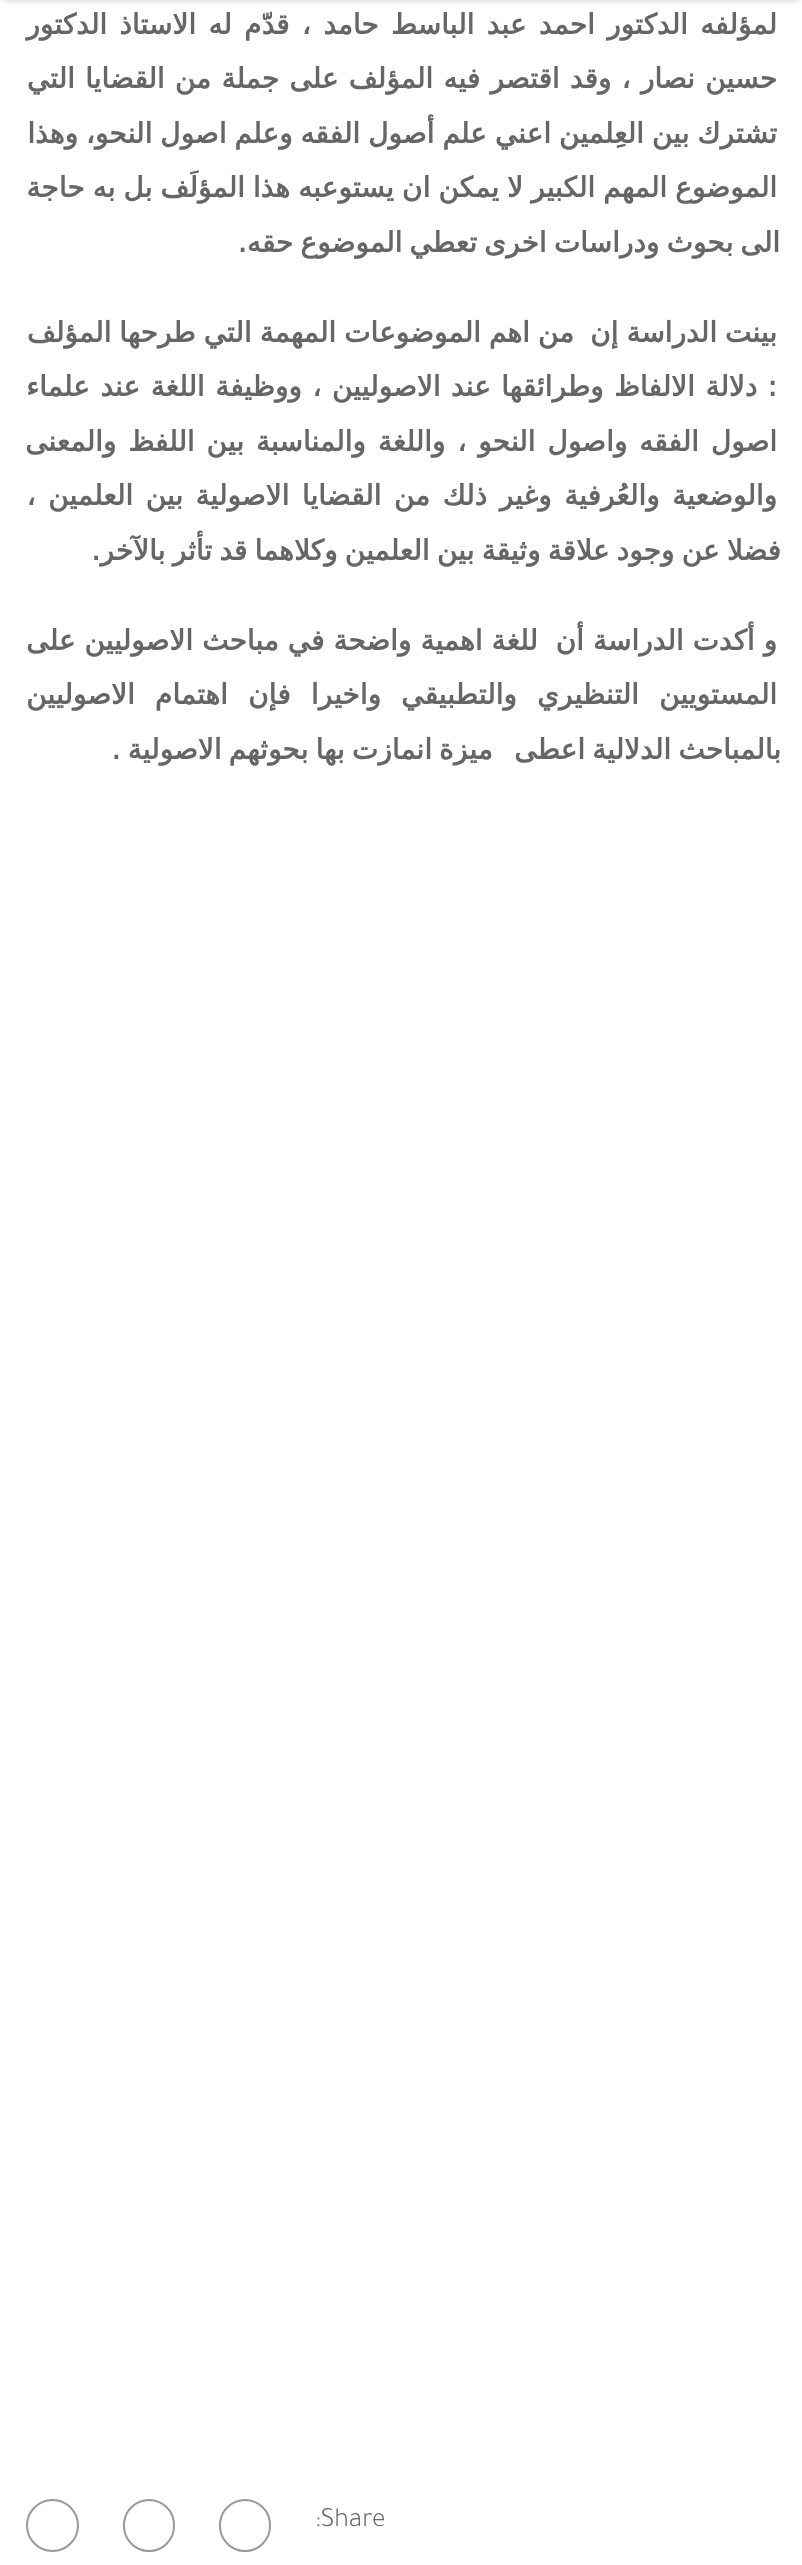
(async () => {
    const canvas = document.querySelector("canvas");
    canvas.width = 802;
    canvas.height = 2565;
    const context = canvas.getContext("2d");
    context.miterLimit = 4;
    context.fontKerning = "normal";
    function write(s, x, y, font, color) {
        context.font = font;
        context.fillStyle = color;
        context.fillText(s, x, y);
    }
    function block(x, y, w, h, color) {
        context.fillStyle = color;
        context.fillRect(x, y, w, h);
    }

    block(0, 0, 802, 2565, "rgb(255, 255, 255)");
    context.fillStyle = "rgba(42, 42, 42, 0.4)";
    context.filter = "blur(4.5px)";
    context.beginPath();
    context.rect(4, -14, 796, 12);
    context.fill();
    context.filter = "none";
    context.wordSpacing = "3.4px";
    context.direction = "rtl";
    write("لمؤلفه الدكتور احمد عبد الباسط حامد ، قدّم له الاستاذ الدكتور", 777, 34, "bold 28px DejaVu Sans", "rgb(102, 102, 102)");
    context.wordSpacing = "1.25px";
    write("حسين نصار ، وقد اقتصر فيه المؤلف على جملة من القضايا التي", 777, 88, "bold 28px DejaVu Sans", "rgb(102, 102, 102)");
    context.wordSpacing = "-1px";
    write("تشترك بين العِلمين اعني علم أصول الفقه وعلم اصول النحو، وهذا", 777, 143, "bold 28px DejaVu Sans", "rgb(102, 102, 102)");
    context.wordSpacing = "-0.9px";
    write("الموضوع المهم الكبير لا يمكن ان يستوعبه هذا المؤلَف بل به حاجة", 777, 197, "bold 28px DejaVu Sans", "rgb(102, 102, 102)");
    context.wordSpacing = "-1.75px";
    write("الى بحوث ودراسات اخرى تعطي الموضوع حقه.", 780, 252, "bold 28px DejaVu Sans", "rgb(102, 102, 102)");
    context.wordSpacing = "-1px";
    write("بينت الدراسة إن  من اهم الموضوعات المهمة التي طرحها المؤلف", 777, 342, "bold 28px DejaVu Sans", "rgb(102, 102, 102)");
    context.wordSpacing = "1.5px";
    write(": دلالة الالفاظ وطرائقها عند الاصوليين ، ووظيفة اللغة عند علماء", 777, 396, "bold 28px DejaVu Sans", "rgb(102, 102, 102)");
    context.wordSpacing = "3px";
    write("اصول الفقه واصول النحو ، واللغة والمناسبة بين اللفظ والمعنى", 777, 451, "bold 28px DejaVu Sans", "rgb(102, 102, 102)");
    context.wordSpacing = "3.5px";
    write("والوضعية والعُرفية وغير ذلك من القضايا الاصولية بين العلمين ،", 777, 505, "bold 28px DejaVu Sans", "rgb(102, 102, 102)");
    context.wordSpacing = "-1.75px";
    write("فضلا عن وجود علاقة وثيقة بين العلمين وكلاهما قد تأثر بالآخر.", 781, 560, "bold 28px DejaVu Sans", "rgb(102, 102, 102)");
    context.wordSpacing = "0px";
    write("و أكدت الدراسة أن  للغة اهمية واضحة في مباحث الاصوليين على", 777, 650, "bold 28px DejaVu Sans", "rgb(102, 102, 102)");
    context.wordSpacing = "11.25px";
    write("المستويين التنظيري والتطبيقي واخيرا فإن اهتمام الاصوليين", 777, 704, "bold 28px DejaVu Sans", "rgb(102, 102, 102)");
    context.wordSpacing = "-1.75px";
    write("بالمباحث الدلالية اعطى   ميزة انمازت بها بحوثهم الاصولية .", 781, 759, "bold 28px DejaVu Sans", "rgb(102, 102, 102)");
    context.wordSpacing = "0px";
    context.direction = "ltr";
    write(":Share", 315, 2526, "300 28px Tajawal", "rgb(102, 102, 102)");
    context.beginPath();
    context.roundRect(220, 2500, 50, 51, 25);
    context.strokeStyle = "rgb(153, 153, 153)";
    context.lineWidth = 2;
    context.stroke();
    context.beginPath();
    context.roundRect(124, 2500, 50, 51, 25);
    context.stroke();
    context.beginPath();
    context.arc(52.5, 2525.5, 25.5, 0, Math.PI * 2);
    context.stroke();
})();
